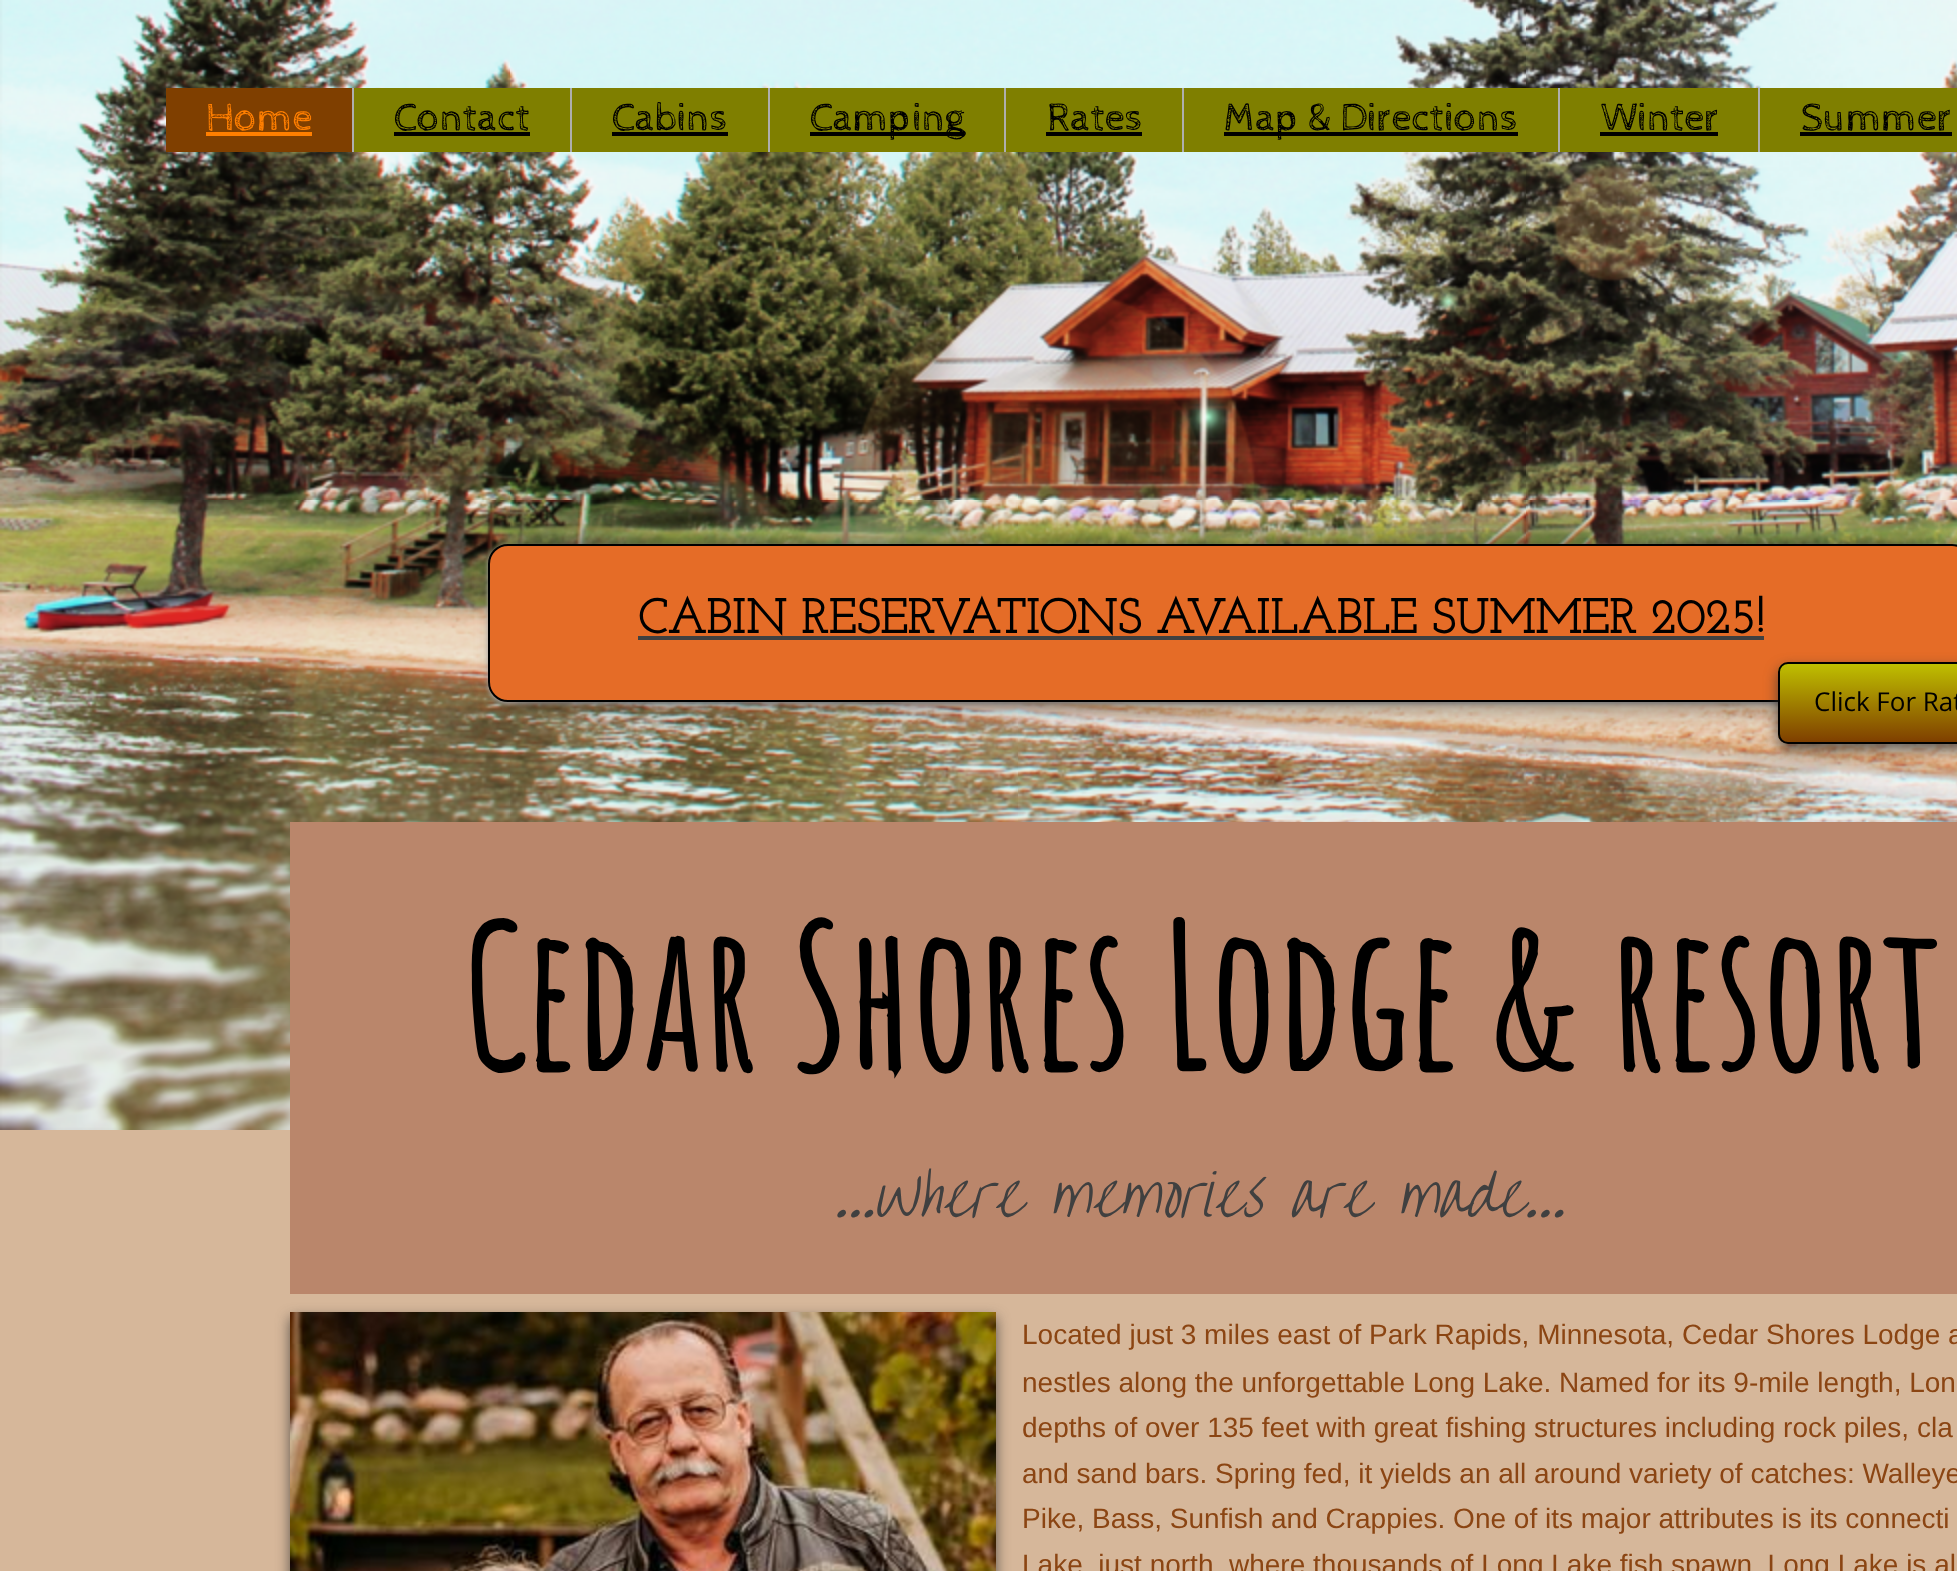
(async () => {
    const canvas = document.querySelector("canvas");
    canvas.width = 1957;
    canvas.height = 1571;
    const context = canvas.getContext("2d");
    context.miterLimit = 4;
    context.fontKerning = "normal";
    function write(s, x, y, font, color) {
        context.font = font;
        context.fillStyle = color;
        context.fillText(s, x, y);
    }
    function block(x, y, w, h, color) {
        context.fillStyle = color;
        context.fillRect(x, y, w, h);
    }
    async function photo(src, x, y, w, h) {
        const img = new Image();
        img.src = src;
        await img.decode();
        context.drawImage(img, x, y, w, h);
    }
    let gradient;

    block(0, 0, 1957, 1571, "rgb(214, 183, 154)");
    await photo("media/1.png", 0, 0, 1957, 1130);
    block(166, 88, 186, 64, "rgb(127, 63, 0)");
    block(352, 88, 2, 64, "rgb(174, 174, 174)");
    write("Home", 206, 130, "40px Cabin Sketch", "rgb(255, 127, 0)");
    block(206, 132, 106, 4, "rgb(255, 127, 0)");
    block(354, 88, 216, 64, "rgb(127, 127, 0)");
    block(570, 88, 2, 64, "rgb(174, 174, 174)");
    write("Contact", 394, 130, "40px Cabin Sketch", "rgb(0, 0, 0)");
    block(394, 132, 136, 4, "rgb(0, 0, 0)");
    block(572, 88, 196, 64, "rgb(127, 127, 0)");
    block(768, 88, 2, 64, "rgb(174, 174, 174)");
    write("Cabins", 612, 130, "40px Cabin Sketch", "rgb(0, 0, 0)");
    block(612, 132, 116, 4, "rgb(0, 0, 0)");
    block(770, 88, 234, 64, "rgb(127, 127, 0)");
    block(1004, 88, 2, 64, "rgb(174, 174, 174)");
    block(810, 132, 154, 4, "rgb(0, 0, 0)");
    write("Camping", 810, 130, "40px Cabin Sketch", "rgb(0, 0, 0)");
    block(1006, 88, 176, 64, "rgb(127, 127, 0)");
    block(1182, 88, 2, 64, "rgb(174, 174, 174)");
    write("Rates", 1047, 130, "40px Cabin Sketch", "rgb(0, 0, 0)");
    block(1046, 132, 96, 4, "rgb(0, 0, 0)");
    block(1184, 88, 374, 64, "rgb(127, 127, 0)");
    block(1558, 88, 2, 64, "rgb(174, 174, 174)");
    block(1224, 132, 294, 4, "rgb(0, 0, 0)");
    write("Map & Directions", 1224, 130, "40px Cabin Sketch", "rgb(0, 0, 0)");
    block(1560, 88, 198, 64, "rgb(127, 127, 0)");
    block(1758, 88, 2, 64, "rgb(174, 174, 174)");
    write("Winter", 1601, 130, "40px Cabin Sketch", "rgb(0, 0, 0)");
    block(1600, 132, 118, 4, "rgb(0, 0, 0)");
    block(1760, 88, 197, 64, "rgb(127, 127, 0)");
    write("Summer", 1801, 130, "40px Cabin Sketch", "rgb(0, 0, 0)");
    block(1800, 132, 152, 4, "rgb(0, 0, 0)");
    context.fillStyle = "rgb(170, 170, 170)";
    context.filter = "blur(2px)";
    context.beginPath();
    context.roundRect(488, 546, 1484, 158, 20);
    context.fill();
    context.filter = "none";
    context.fillStyle = "rgba(0, 0, 0, 0.6)";
    context.filter = "blur(15px)";
    context.beginPath();
    context.roundRect(508, 544, 1444, 158, 20);
    context.fill();
    context.filter = "none";
    context.fillStyle = "rgb(229, 108, 39)";
    context.beginPath();
    context.roundRect(489, 545, 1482, 156, 19);
    context.fill();
    context.strokeStyle = "rgb(0, 0, 0)";
    context.lineWidth = 2;
    context.stroke();
    write("CABIN RESERVATIONS AVAILABLE SUMMER 2025!", 638, 633, "bold 48px Josefin Slab", "rgb(0, 0, 0)");
    block(638, 636, 1126, 4, "rgb(64, 64, 64)");
    context.fillStyle = "rgba(50, 50, 50, 0.75)";
    context.filter = "blur(7px)";
    context.beginPath();
    context.roundRect(1778, 668, 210, 82, 10);
    context.fill();
    context.filter = "none";
    context.save();
    context.beginPath();
    context.roundRect(1778, 662, 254, 82, 10);
    context.clip();
    gradient = context.createLinearGradient(1905, 664, 1905, 742);
    gradient.addColorStop(0, "rgb(191, 191, 0)");
    gradient.addColorStop(1, "rgb(127, 63, 0)");
    context.fillStyle = gradient;
    context.fillRect(1778, 664, 179, 78);
    context.restore();
    context.beginPath();
    context.roundRect(1779, 663, 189, 80, 9);
    context.stroke();
    write("Click For Rat", 1814, 711, "26px Open Sans", "rgb(0, 0, 0)");
    block(290, 822, 1667, 472, "rgb(186, 134, 107)");
    write("Cedar Shores Lodge & resort", 460, 1070, "bold 192px Amatic SC", "rgb(0, 0, 0)");
    write("...Where memories are made...", 833, 1217, "italic 56px Over the Rainbow", "rgb(64, 64, 64)");
    context.fillStyle = "rgba(50, 50, 50, 0.75)";
    context.filter = "blur(7px)";
    context.beginPath();
    context.rect(290, 1318, 706, 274);
    context.fill();
    context.filter = "none";
    await photo("media/2.png", 290, 1312, 706, 259);
    write("Located just 3 miles east of Park Rapids, Minnesota, Cedar Shores Lodge a", 1022, 1344, "28px Liberation Sans", "rgb(139, 69, 19)");
    write("nestles along the unforgettable Long Lake. Named for its 9-mile length, Lon", 1022, 1392, "28px Liberation Sans", "rgb(139, 69, 19)");
    write("depths of over 135 feet with great fishing structures including rock piles, cla", 1022, 1437, "28px Liberation Sans", "rgb(139, 69, 19)");
    write("and sand bars. Spring fed, it yields an all around variety of catches: Walleye", 1022, 1483, "28px Liberation Sans", "rgb(139, 69, 19)");
    write("Pike, Bass, Sunfish and Crappies. One of its major attributes is its connecti", 1022, 1528, "28px Liberation Sans", "rgb(139, 69, 19)");
    write("Lake, just north, where thousands of Long Lake fish spawn. Long Lake is al", 1022, 1574, "28px Liberation Sans", "rgb(139, 69, 19)");
})();
